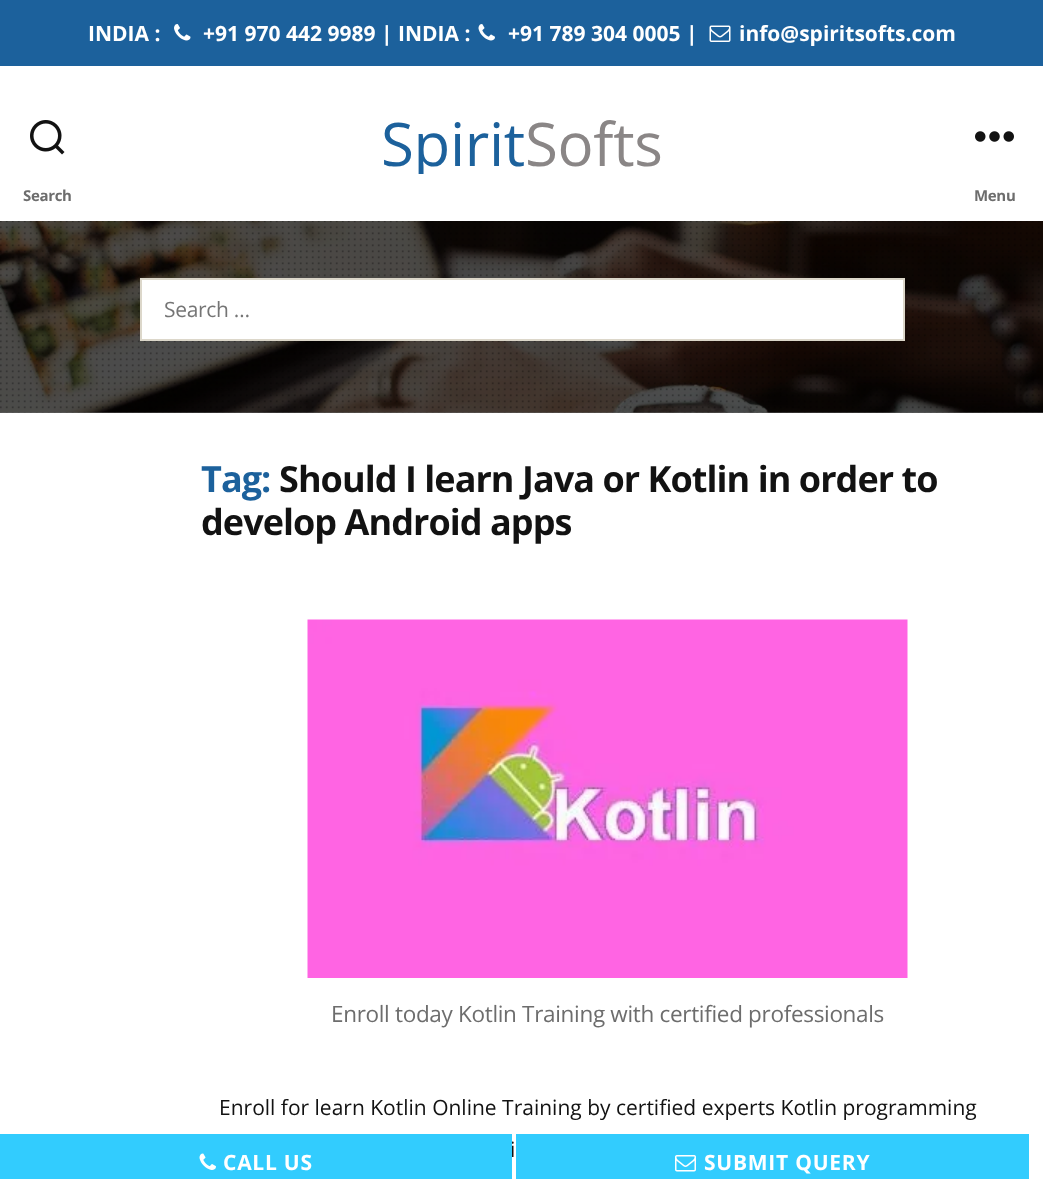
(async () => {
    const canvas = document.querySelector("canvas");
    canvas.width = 1043;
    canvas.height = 1179;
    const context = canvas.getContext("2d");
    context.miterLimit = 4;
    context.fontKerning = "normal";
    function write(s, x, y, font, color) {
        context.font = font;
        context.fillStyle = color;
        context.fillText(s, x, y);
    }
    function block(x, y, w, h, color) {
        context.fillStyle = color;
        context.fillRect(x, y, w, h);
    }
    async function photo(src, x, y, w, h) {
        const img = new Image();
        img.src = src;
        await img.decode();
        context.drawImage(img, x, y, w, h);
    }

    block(0, 0, 1043, 1179, "rgb(255, 255, 255)");
    block(0, 412, 1043, 1, "rgb(102, 102, 102)");
    block(0, 0, 1043, 66, "rgb(28, 97, 156)");
    write("INDIA :", 88, 41, "bold 21px Open Sans", "rgb(255, 255, 255)");
    await photo("media/1.png", 174, 24, 17, 17);
    write("+91 970 442 9989 | INDIA :", 203, 41, "bold 21px Open Sans", "rgb(255, 255, 255)");
    await photo("media/2.png", 478, 24, 17, 17);
    write("+91 789 304 0005 |", 508, 41, "bold 21px Open Sans", "rgb(255, 255, 255)");
    await photo("media/3.png", 709, 25, 22, 17);
    write("info@spiritsofts.com", 739, 41, "bold 21px Open Sans", "rgb(255, 255, 255)");
    context.save();
    context.beginPath();
    context.rect(381, 114, 282, 60);
    context.clip();
    context.letterSpacing = "-0.32px";
    write("Spirit", 381, 166, "60px Open Sans", "rgb(28, 97, 156)");
    context.restore();
    context.letterSpacing = "-0.32px";
    write("Softs", 525, 166, "60px Open Sans", "rgb(138, 134, 134)");
    await photo("media/4.png", 30, 120, 35, 35);
    write("Search", 23, 201, "bold 15px Open Sans", "rgb(109, 109, 109)");
    await photo("media/5.png", 975, 131, 39, 11);
    write("Menu", 974, 201, "bold 15px Open Sans", "rgb(109, 109, 109)");
    await photo("media/6.png", 0, 221, 1043, 192);
    await photo("media/7.png", 0, 221, 1043, 192);
    context.fillStyle = "rgb(255, 255, 255)";
    context.beginPath();
    context.rect(141, 279, 763, 61);
    context.fill();
    context.strokeStyle = "rgb(220, 215, 202)";
    context.lineWidth = 2;
    context.stroke();
    write("Search …", 164, 317, "21px Open Sans", "rgb(117, 117, 117)");
    context.letterSpacing = "-0.95px";
    write("Tag:", 201, 492, "bold 36px Open Sans", "rgb(28, 97, 156)");
    write("Should I learn Java or Kotlin in order to", 279, 492, "bold 36px Open Sans", "rgb(18, 18, 18)");
    write("develop Android apps", 201, 535, "bold 36px Open Sans", "rgb(18, 18, 18)");
    await photo("media/8.png", 307, 619, 601, 359);
    context.letterSpacing = "-0.32px";
    write("Enroll today Kotlin Training with certified professionals", 331, 1022, "22.5px Open Sans", "rgb(109, 109, 109)");
    context.letterSpacing = "0px";
    write("Enroll for learn Kotlin Online Training by certified experts Kotlin programming", 219, 1115, "21px Open Sans", "rgb(18, 18, 18)");
    write("i", 510, 1157, "21px Open Sans", "rgb(18, 18, 18)");
    block(0, 1134, 512, 45, "rgb(50, 204, 254)");
    await photo("media/9.png", 199, 1153, 17, 17);
    context.letterSpacing = "0.75px";
    write("CALL US", 223, 1170, "bold 21px Open Sans", "rgb(255, 255, 255)");
    block(516, 1134, 513, 45, "rgb(50, 204, 254)");
    await photo("media/10.png", 675, 1155, 21, 17);
    write("SUBMIT QUERY", 704, 1170, "bold 21px Open Sans", "rgb(255, 255, 255)");
})();
